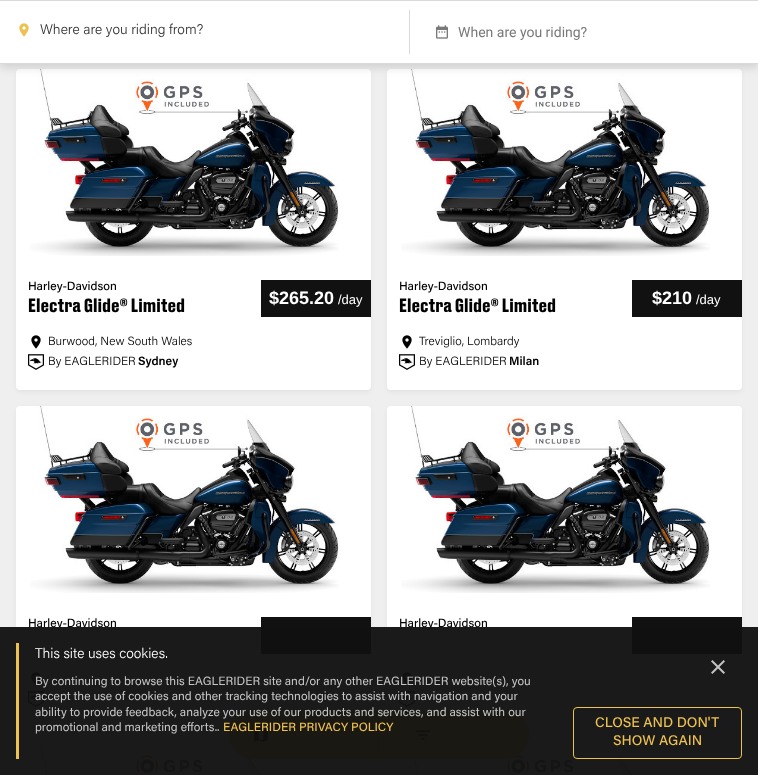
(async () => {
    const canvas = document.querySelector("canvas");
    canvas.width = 758;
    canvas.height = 775;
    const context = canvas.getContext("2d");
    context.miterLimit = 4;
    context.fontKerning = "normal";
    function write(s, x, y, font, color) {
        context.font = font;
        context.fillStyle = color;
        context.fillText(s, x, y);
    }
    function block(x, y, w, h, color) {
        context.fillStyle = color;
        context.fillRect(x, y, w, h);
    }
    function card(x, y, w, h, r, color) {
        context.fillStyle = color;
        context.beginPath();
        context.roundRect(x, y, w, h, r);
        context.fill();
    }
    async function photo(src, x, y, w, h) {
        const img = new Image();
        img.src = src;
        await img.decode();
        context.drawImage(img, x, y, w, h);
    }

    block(0, 0, 758, 775, "rgb(239, 239, 239)");
    context.fillStyle = "rgba(0, 0, 0, 0.05)";
    context.filter = "blur(2px)";
    context.beginPath();
    context.roundRect(16, 71, 355, 321, 4);
    context.fill();
    context.filter = "none";
    card(16, 69, 355, 321, 4, "rgb(255, 255, 255)");
    await photo("media/3.png", 30, 69, 309, 187);
    context.fillStyle = "rgba(0, 0, 0, 0.05)";
    context.filter = "blur(2px)";
    context.beginPath();
    context.roundRect(387, 71, 355, 321, 4);
    context.fill();
    context.filter = "none";
    card(387, 69, 355, 321, 4, "rgb(255, 255, 255)");
    await photo("media/3.png", 401, 69, 309, 187);
    context.fillStyle = "rgba(0, 0, 0, 0.12)";
    context.filter = "blur(4px)";
    context.beginPath();
    context.rect(0, 4, 758, 64);
    context.fill();
    context.filter = "none";
    block(0, 1, 758, 62, "rgb(255, 255, 255)");
    block(0, 0, 758, 1, "rgb(218, 218, 218)");
    block(0, 63, 758, 1, "rgb(218, 218, 218)");
    await photo("media/1.png", 19, 23, 10, 14);
    write("Where are you riding from?", 40, 34, "300 14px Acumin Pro", "rgb(51, 51, 51)");
    block(409, 10, 1, 44, "rgb(218, 218, 218)");
    await photo("media/2.png", 436, 25, 12, 14);
    write("When are you riding?", 458, 37, "14px Roboto", "rgb(121, 121, 121)");
    write("Harley-Davidson", 28, 290, "500 12px Acumin Pro", "rgb(0, 0, 0)");
    write("Electra Glide® Limited", 28, 312, "bold 18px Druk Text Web", "rgb(0, 0, 0)");
    block(261, 280, 110, 37, "rgb(17, 17, 17)");
    write("$265.20", 269, 304, "bold 18px Liberation Sans", "rgb(255, 255, 255)");
    write("/day", 338, 304, "13px Liberation Sans", "rgb(255, 255, 255)");
    await photo("media/4.png", 31, 335, 10, 14);
    write("Burwood, New South Wales", 48, 345, "300 12px Acumin Pro", "rgb(0, 0, 0)");
    await photo("media/5.png", 28, 354, 16, 16);
    write("By EAGLERIDER", 48, 365, "300 12px Acumin Pro", "rgb(0, 0, 0)");
    write("Sydney", 138, 365, "600 12px Acumin Pro", "rgb(0, 0, 0)");
    write("Harley-Davidson", 399, 290, "500 12px Acumin Pro", "rgb(0, 0, 0)");
    write("Electra Glide® Limited", 399, 312, "bold 18px Druk Text Web", "rgb(0, 0, 0)");
    block(632, 280, 110, 37, "rgb(17, 17, 17)");
    write("$210", 652, 304, "bold 18px Liberation Sans", "rgb(255, 255, 255)");
    write("/day", 696, 304, "13px Liberation Sans", "rgb(255, 255, 255)");
    await photo("media/4.png", 402, 335, 10, 14);
    write("Treviglio, Lombardy", 419, 345, "300 12px Acumin Pro", "rgb(0, 0, 0)");
    await photo("media/5.png", 399, 354, 16, 16);
    write("By EAGLERIDER", 419, 365, "300 12px Acumin Pro", "rgb(0, 0, 0)");
    write("Milan", 509, 365, "600 12px Acumin Pro", "rgb(0, 0, 0)");
    context.fillStyle = "rgba(0, 0, 0, 0.05)";
    context.filter = "blur(2px)";
    context.beginPath();
    context.roundRect(16, 408, 355, 321, 4);
    context.fill();
    context.filter = "none";
    card(16, 406, 355, 321, 4, "rgb(255, 255, 255)");
    await photo("media/3.png", 30, 406, 309, 187);
    write("Harley-Davidson", 28, 627, "500 12px Acumin Pro", "rgb(0, 0, 0)");
    block(261, 617, 110, 37, "rgb(17, 17, 17)");
    await photo("media/4.png", 31, 672, 10, 14);
    await photo("media/5.png", 28, 691, 16, 16);
    context.fillStyle = "rgba(0, 0, 0, 0.05)";
    context.filter = "blur(2px)";
    context.beginPath();
    context.roundRect(387, 408, 355, 321, 4);
    context.fill();
    context.filter = "none";
    card(387, 406, 355, 321, 4, "rgb(255, 255, 255)");
    await photo("media/3.png", 401, 406, 309, 187);
    write("Harley-Davidson", 399, 627, "500 12px Acumin Pro", "rgb(0, 0, 0)");
    block(632, 617, 110, 37, "rgb(17, 17, 17)");
    await photo("media/4.png", 402, 672, 10, 14);
    await photo("media/5.png", 399, 691, 16, 16);
    block(16, 743, 355, 32, "rgb(255, 255, 255)");
    await photo("media/6.png", 40, 743, 222, 32);
    card(387, 743, 355, 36, 4, "rgb(255, 255, 255)");
    await photo("media/6.png", 411, 743, 222, 32);
    context.fillStyle = "rgb(237, 193, 79)";
    context.beginPath();
    context.roundRect(229, 711, 150, 48, [24, 0, 0, 24]);
    context.fill();
    block(378, 711, 1, 48, "rgb(229, 172, 23)");
    await photo("media/7.png", 254, 728, 14, 14);
    context.fillStyle = "rgb(237, 193, 79)";
    context.beginPath();
    context.roundRect(379, 711, 150, 48, [0, 24, 24, 0]);
    context.fill();
    await photo("media/8.png", 416, 730, 14, 10);
    block(0, 627, 758, 148, "rgba(17, 17, 17, 0.96)");
    block(16, 643, 3, 116, "rgb(237, 193, 79)");
    write("This site uses cookies.", 35, 658, "300 14px Acumin Pro", "rgb(255, 255, 255)");
    write("By continuing to browse this EAGLERIDER site and/or any other EAGLERIDER website(s), you", 35, 685, "12px Acumin Pro", "rgb(198, 198, 198)");
    write("accept the use of cookies and other tracking technologies to assist with navigation and your", 35, 700, "12px Acumin Pro", "rgb(198, 198, 198)");
    write("ability to provide feedback, analyze your use of our products and services, and assist with our", 35, 716, "12px Acumin Pro", "rgb(198, 198, 198)");
    write("promotional and marketing efforts..", 35, 731, "12px Acumin Pro", "rgb(198, 198, 198)");
    write("EAGLERIDER PRIVACY POLICY", 223, 731, "500 12px Acumin Pro", "rgb(237, 193, 79)");
    await photo("media/9.png", 711, 660, 14, 14);
    context.beginPath();
    context.roundRect(573.5, 707.5, 168, 51, 3.5);
    context.strokeStyle = "rgb(237, 193, 79)";
    context.stroke();
    write("CLOSE AND DON'T", 595, 727, "500 14px Acumin Pro", "rgb(237, 193, 79)");
    write("SHOW AGAIN", 613, 745, "500 14px Acumin Pro", "rgb(237, 193, 79)");
})();
